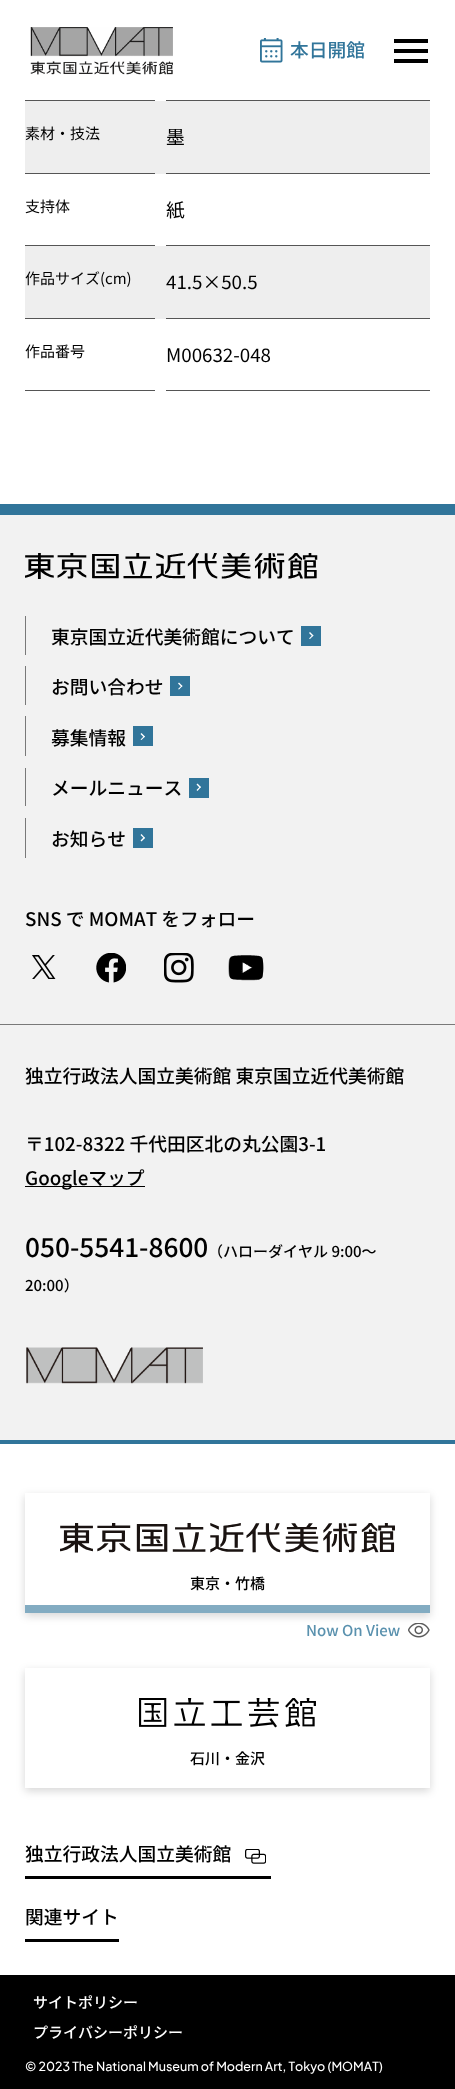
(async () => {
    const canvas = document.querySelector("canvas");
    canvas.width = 455;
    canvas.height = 2089;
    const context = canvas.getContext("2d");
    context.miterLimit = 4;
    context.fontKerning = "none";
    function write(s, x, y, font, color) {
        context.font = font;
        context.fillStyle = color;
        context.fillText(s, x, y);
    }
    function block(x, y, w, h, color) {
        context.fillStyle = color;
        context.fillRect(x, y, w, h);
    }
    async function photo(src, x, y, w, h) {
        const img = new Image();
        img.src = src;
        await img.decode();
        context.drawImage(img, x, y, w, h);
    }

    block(0, 0, 455, 2089, "rgb(242, 242, 242)");
    block(0, 0, 455, 504, "rgb(255, 255, 255)");
    await photo("media/1.png", 30, 27, 143, 48);
    await photo("media/2.png", 260, 38, 23, 25);
    write("本日開館", 290, 57, "500 18.75px Noto Sans JP", "rgb(49, 117, 154)");
    block(394, 39, 34, 4, "rgb(0, 0, 0)");
    block(394, 49, 34, 4, "rgb(0, 0, 0)");
    block(394, 59, 34, 4, "rgb(0, 0, 0)");
    block(25, 100, 130, 1, "rgb(85, 85, 85)");
    block(166, 100, 264, 1, "rgb(85, 85, 85)");
    block(25, 101, 405, 73, "rgb(238, 238, 238)");
    block(25, 173, 130, 1, "rgb(85, 85, 85)");
    write("素材・技法", 25, 139, "15px Noto Sans JP", "rgb(0, 0, 0)");
    block(166, 173, 264, 1, "rgb(85, 85, 85)");
    write("墨", 166, 144, "18.75px Noto Sans JP", "rgb(0, 0, 0)");
    block(25, 245, 130, 1, "rgb(85, 85, 85)");
    write("支持体", 25, 212, "15px Noto Sans JP", "rgb(0, 0, 0)");
    block(166, 245, 264, 1, "rgb(85, 85, 85)");
    write("紙", 166, 217, "18.75px Noto Sans JP", "rgb(0, 0, 0)");
    block(25, 246, 405, 73, "rgb(238, 238, 238)");
    block(25, 318, 130, 1, "rgb(85, 85, 85)");
    write("作品サイズ(cm)", 25, 284, "15px Noto Sans JP", "rgb(0, 0, 0)");
    block(166, 318, 264, 1, "rgb(85, 85, 85)");
    write("41.5×50.5", 166, 289, "18.75px Noto Sans JP", "rgb(0, 0, 0)");
    block(25, 390, 130, 1, "rgb(85, 85, 85)");
    write("作品番号", 25, 357, "15px Noto Sans JP", "rgb(0, 0, 0)");
    block(166, 390, 264, 1, "rgb(85, 85, 85)");
    write("M00632-048", 166, 362, "18.75px Noto Sans JP", "rgb(0, 0, 0)");
    block(0, 504, 455, 11, "rgb(49, 117, 154)");
    await photo("media/3.png", 25, 553, 293, 26);
    block(25, 616, 1, 39, "rgb(121, 121, 121)");
    write("東京国立近代美術館について", 51, 644, "500 18.75px Noto Sans JP", "rgb(0, 0, 0)");
    block(301, 626, 20, 20, "rgb(49, 117, 154)");
    context.fillStyle = "rgb(255, 255, 255)";
    context.beginPath();
    context.moveTo(309, 633);
    context.lineTo(310, 632);
    context.lineTo(313.5, 635.5);
    context.lineTo(312.5, 636.5);
    context.closePath();
    context.fill();
    context.beginPath();
    context.moveTo(309, 638.5);
    context.lineTo(312.5, 635);
    context.lineTo(313.5, 635.5);
    context.lineTo(310, 639);
    context.closePath();
    context.fill();
    block(25, 666, 1, 39, "rgb(121, 121, 121)");
    write("お問い合わせ", 51, 694, "500 18.75px Noto Sans JP", "rgb(0, 0, 0)");
    block(170, 676, 20, 20, "rgb(49, 117, 154)");
    context.fillStyle = "rgb(255, 255, 255)";
    context.beginPath();
    context.moveTo(178, 683.5);
    context.lineTo(179, 682.5);
    context.lineTo(182.5, 686);
    context.lineTo(181.5, 687);
    context.closePath();
    context.fill();
    block(133, 726, 20, 20, "rgb(49, 117, 154)");
    context.fillStyle = "rgb(255, 255, 255)";
    context.beginPath();
    context.moveTo(178, 689);
    context.lineTo(181.5, 685.5);
    context.lineTo(182.5, 686);
    context.lineTo(179, 689.5);
    context.closePath();
    context.moveTo(140.5, 734);
    context.lineTo(141.5, 733);
    context.lineTo(145, 736.5);
    context.lineTo(144, 737.5);
    context.closePath();
    context.fill();
    block(25, 716, 1, 40, "rgb(121, 121, 121)");
    write("募集情報", 51, 745, "500 18.75px Noto Sans JP", "rgb(0, 0, 0)");
    write("メールニュース", 51, 795, "500 18.75px Noto Sans JP", "rgb(0, 0, 0)");
    block(189, 778, 20, 20, "rgb(49, 117, 154)");
    context.fillStyle = "rgb(255, 255, 255)";
    context.beginPath();
    context.moveTo(140.5, 739.5);
    context.lineTo(144, 736);
    context.lineTo(145, 736.5);
    context.lineTo(141.5, 740);
    context.closePath();
    context.moveTo(196.5, 784.5);
    context.lineTo(197.5, 783.5);
    context.lineTo(201, 787);
    context.lineTo(200, 788);
    context.closePath();
    context.fill();
    block(25, 768, 1, 38, "rgb(121, 121, 121)");
    block(133, 828, 20, 20, "rgb(49, 117, 154)");
    context.fillStyle = "rgb(255, 255, 255)";
    context.beginPath();
    context.moveTo(196.5, 790);
    context.lineTo(200, 786.5);
    context.lineTo(201, 787);
    context.lineTo(197.5, 791);
    context.closePath();
    context.moveTo(140.5, 835);
    context.lineTo(141.5, 834);
    context.lineTo(145, 838);
    context.lineTo(144, 838.5);
    context.closePath();
    context.fill();
    block(25, 818, 1, 40, "rgb(121, 121, 121)");
    write("お知らせ", 51, 846, "500 18.75px Noto Sans JP", "rgb(0, 0, 0)");
    context.fillStyle = "rgb(255, 255, 255)";
    context.beginPath();
    context.moveTo(140.5, 840.5);
    context.lineTo(144, 837);
    context.lineTo(145, 838);
    context.lineTo(141.5, 841.5);
    context.closePath();
    context.fill();
    block(0, 1024, 455, 1, "rgb(121, 121, 121)");
    write("SNS で MOMAT をフォロー", 25, 926, "500 18.75px Noto Sans JP", "rgb(0, 0, 0)");
    await photo("media/4.png", 32, 955, 24, 24);
    await photo("media/5.png", 96, 953, 30, 30);
    await photo("media/6.png", 164, 953, 30, 30);
    await photo("media/7.png", 228, 955, 36, 26);
    write("独立行政法人国立美術館 東京国立近代美術館", 25, 1083, "500 18.75px Noto Sans JP", "rgb(0, 0, 0)");
    write("〒102-8322 千代田区北の丸公園3-1", 25, 1151, "500 18.75px Noto Sans JP", "rgb(0, 0, 0)");
    block(25, 1186, 120, 1, "rgb(0, 0, 0)");
    write("Googleマップ", 25, 1185, "500 18.75px Noto Sans JP", "rgb(0, 0, 0)");
    write("050-5541-8600", 25, 1257, "500 26.25px Noto Sans JP", "rgb(0, 0, 0)");
    write("（ハローダイヤル 9:00～", 208, 1257, "500 15px Noto Sans JP", "rgb(0, 0, 0)");
    write("20:00）", 25, 1291, "500 15px Noto Sans JP", "rgb(0, 0, 0)");
    await photo("media/8.png", 26, 1347, 177, 37);
    block(0, 1444, 455, 531, "rgb(255, 255, 255)");
    block(0, 1440, 455, 4, "rgb(49, 117, 154)");
    context.save();
    context.beginPath();
    context.moveTo(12, 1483);
    context.lineTo(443, 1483);
    context.lineTo(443, 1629);
    context.lineTo(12, 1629);
    context.closePath();
    context.moveTo(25, 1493);
    context.lineTo(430, 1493);
    context.lineTo(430, 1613);
    context.lineTo(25, 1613);
    context.closePath();
    context.clip("evenodd");
    context.fillStyle = "rgba(0, 0, 0, 0.16)";
    context.filter = "blur(4px)";
    context.beginPath();
    context.rect(25, 1496, 405, 120);
    context.fill();
    context.filter = "none";
    context.restore();
    block(25, 1605, 405, 8, "rgba(49, 117, 154, 0.6)");
    await photo("media/9.png", 60, 1523, 335, 30);
    write("東京・竹橋", 190, 1589, "500 15px Noto Sans JP", "rgb(0, 0, 0)");
    write("Now On View", 306, 1636, "500 15px Noto Sans JP", "rgb(90, 145, 174)");
    await photo("media/10.png", 408, 1623, 22, 15);
    context.save();
    context.beginPath();
    context.moveTo(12, 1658);
    context.lineTo(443, 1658);
    context.lineTo(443, 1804);
    context.lineTo(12, 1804);
    context.closePath();
    context.moveTo(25, 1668);
    context.lineTo(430, 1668);
    context.lineTo(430, 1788);
    context.lineTo(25, 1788);
    context.closePath();
    context.clip("evenodd");
    context.fillStyle = "rgba(0, 0, 0, 0.16)";
    context.filter = "blur(4px)";
    context.beginPath();
    context.rect(25, 1671, 405, 120);
    context.fill();
    context.filter = "none";
    context.restore();
    await photo("media/11.png", 139, 1698, 177, 30);
    write("石川・金沢", 190, 1764, "500 15px Noto Sans JP", "rgb(0, 0, 0)");
    await photo("media/12.png", 245, 1849, 21, 15);
    block(25, 1876, 246, 3, "rgb(0, 0, 0)");
    write("独立行政法人国立美術館", 25, 1861, "500 18.75px Noto Sans JP", "rgb(0, 0, 0)");
    block(25, 1939, 94, 3, "rgb(0, 0, 0)");
    write("関連サイト", 25, 1924, "500 18.75px Noto Sans JP", "rgb(0, 0, 0)");
    block(0, 1975, 455, 114, "rgb(0, 0, 0)");
    write("サイトポリシー", 33, 2008, "500 15px Noto Sans JP", "rgb(255, 255, 255)");
    write("プライバシーポリシー", 33, 2038, "500 15px Noto Sans JP", "rgb(255, 255, 255)");
    write("© 2023 The National Museum of Modern Art, Tokyo (MOMAT)", 25, 2071, "500 12.5px Plus Jakarta Sans", "rgb(255, 255, 255)");
})();
